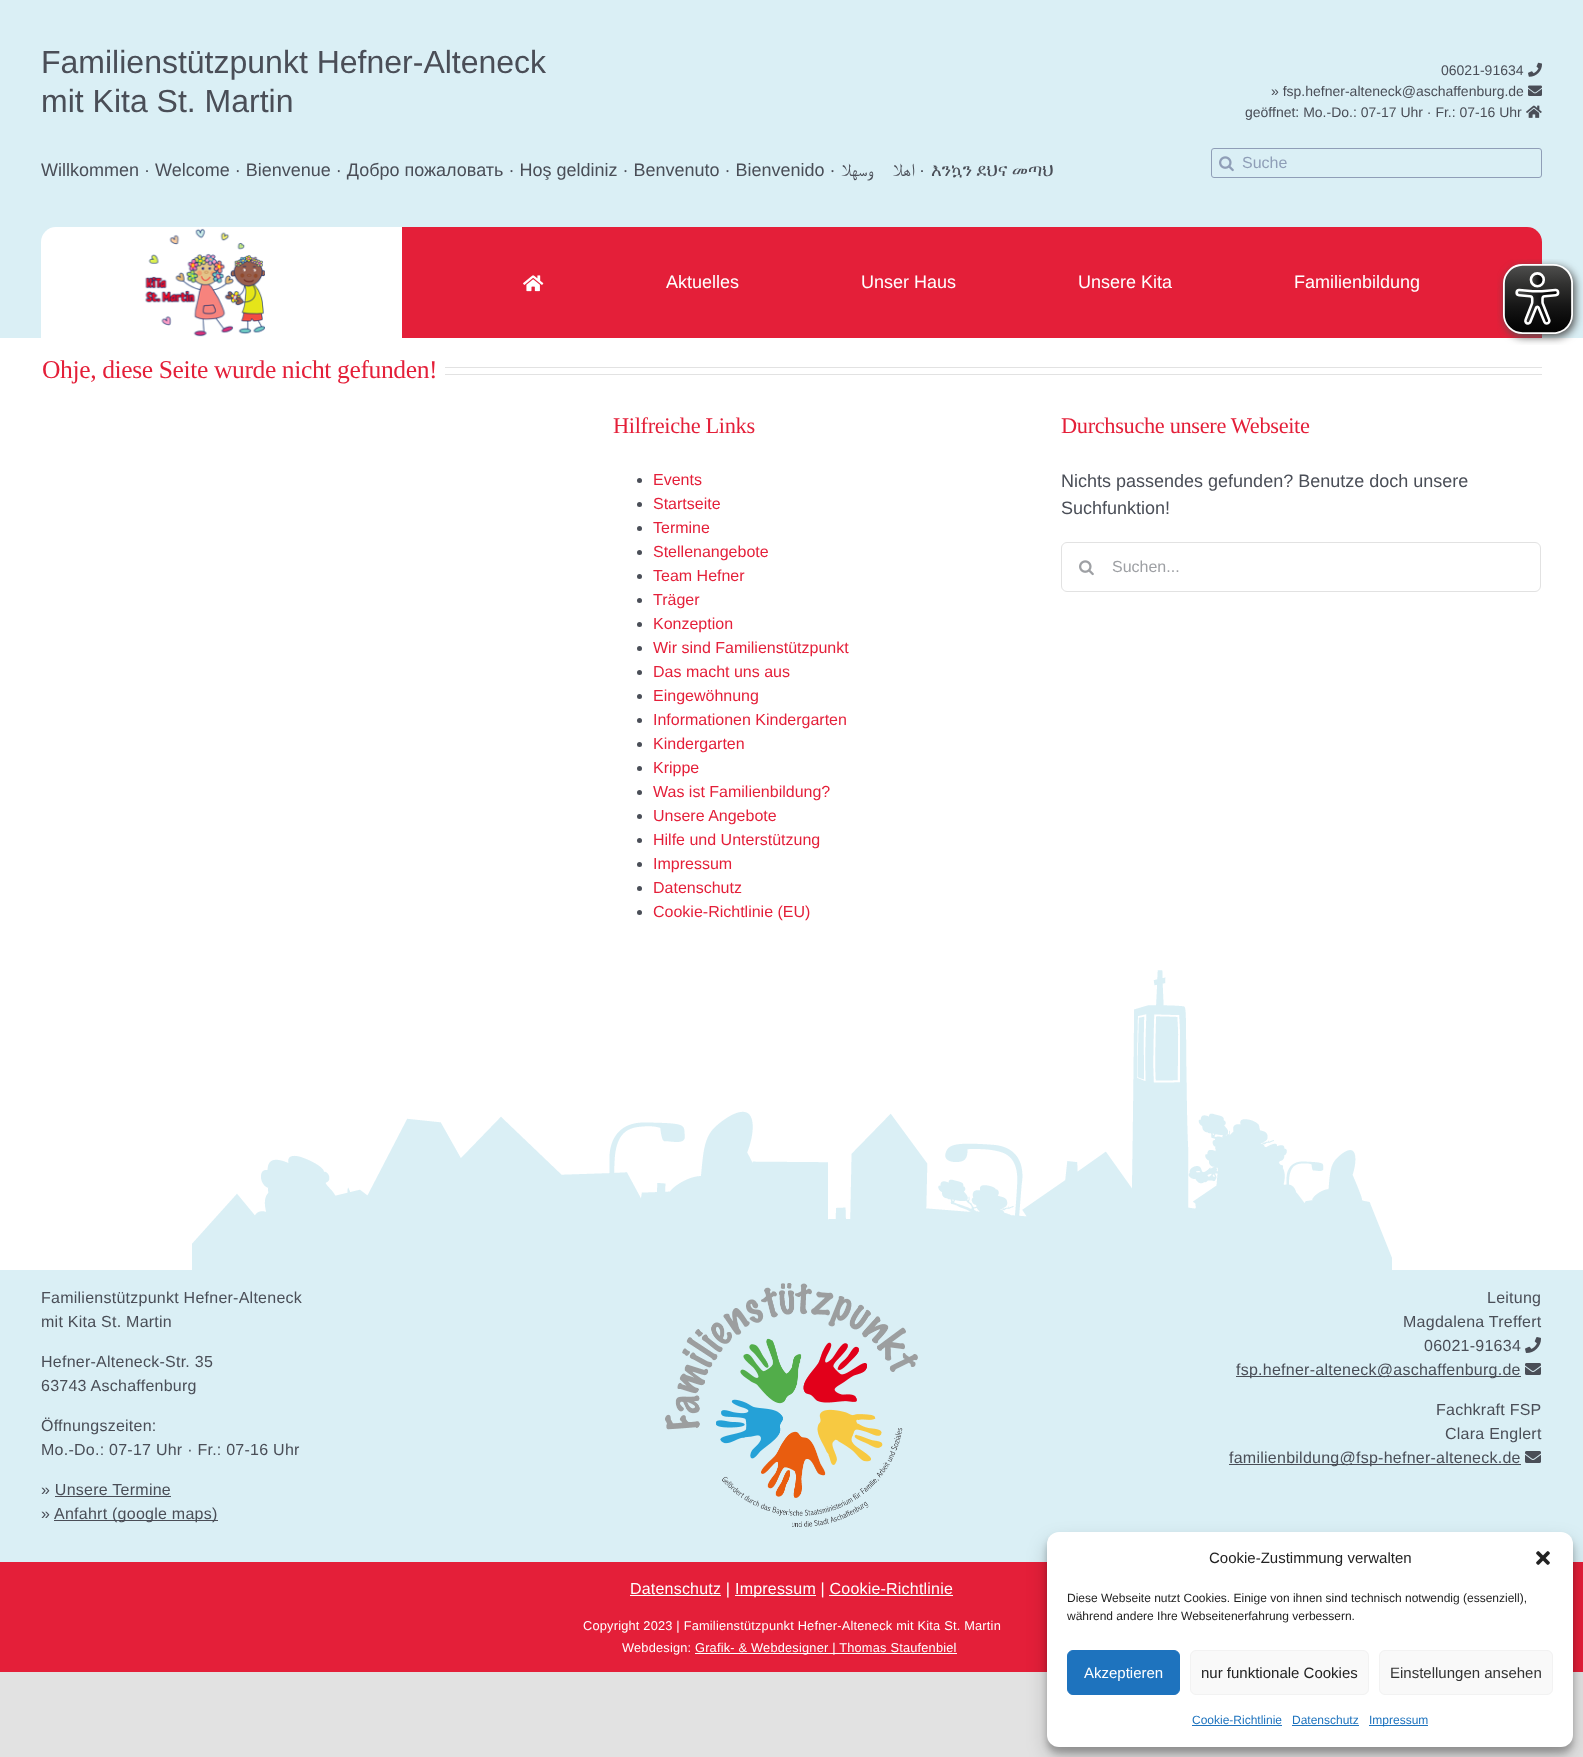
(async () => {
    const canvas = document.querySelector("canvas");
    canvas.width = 1583;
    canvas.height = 1757;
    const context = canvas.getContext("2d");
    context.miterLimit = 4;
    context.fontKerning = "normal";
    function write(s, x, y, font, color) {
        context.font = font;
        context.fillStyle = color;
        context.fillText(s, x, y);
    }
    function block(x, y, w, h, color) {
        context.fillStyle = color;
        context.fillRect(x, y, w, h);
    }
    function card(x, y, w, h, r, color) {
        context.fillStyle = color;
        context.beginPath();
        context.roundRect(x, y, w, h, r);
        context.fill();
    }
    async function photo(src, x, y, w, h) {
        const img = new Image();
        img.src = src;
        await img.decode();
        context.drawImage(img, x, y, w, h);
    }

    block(0, 0, 1583, 1757, "rgb(226, 226, 226)");
    block(0, 338, 1583, 932, "rgb(255, 255, 255)");
    block(0, 0, 1583, 143, "rgb(218, 239, 245)");
    write("Familienstützpunkt Hefner-Alteneck", 41, 73, "32px Liberation Sans", "rgb(74, 78, 87)");
    write("mit Kita St. Martin", 41, 112, "32px Liberation Sans", "rgb(74, 78, 87)");
    write("06021-91634", 1441, 75, "14px Liberation Sans", "rgb(74, 78, 87)");
    await photo("media/1.png", 1528, 62, 14, 15);
    write("» fsp.hefner-alteneck@aschaffenburg.de", 1271, 96, "14px Liberation Sans", "rgb(74, 78, 87)");
    await photo("media/2.png", 1528, 85, 14, 11);
    write("geöffnet: Mo.-Do.: 07-17 Uhr · Fr.: 07-16 Uhr", 1245, 117, "14px Liberation Sans", "rgb(74, 78, 87)");
    await photo("media/3.png", 1526, 105, 16, 13);
    block(0, 143, 1583, 195, "rgb(218, 239, 245)");
    write("Willkommen · Welcome · Bienvenue · Добро пожаловать · Hoş geldiniz · Benvenuto · Bienvenido ·", 41, 176, "18px Liberation Sans", "rgb(74, 78, 87)");
    context.wordSpacing = "15px";
    context.direction = "rtl";
    write("اهلا وسهلا", 914, 176, "18px FreeSerif", "rgb(74, 78, 87)");
    context.wordSpacing = "0px";
    context.direction = "ltr";
    write("·", 919, 176, "18px Liberation Sans", "rgb(74, 78, 87)");
    write("እንኳን ደህና መጣህ", 931, 176, "18px FreeSerif", "rgb(74, 78, 87)");
    context.beginPath();
    context.roundRect(1211.5, 148.5, 330, 29, 2.5);
    context.strokeStyle = "rgb(143, 158, 183)";
    context.stroke();
    await photo("media/4.png", 1219, 156, 15, 16);
    write("Suche", 1242, 168, "16px Liberation Sans", "rgb(143, 158, 183)");
    context.fillStyle = "rgb(255, 255, 255)";
    context.beginPath();
    context.roundRect(41, 227, 361, 111, [15, 0, 0, 0]);
    context.fill();
    await photo("media/5.png", 145, 228, 120, 109);
    context.fillStyle = "rgb(228, 31, 57)";
    context.beginPath();
    context.roundRect(402, 227, 1140, 111, [0, 15, 0, 0]);
    context.fill();
    await photo("media/6.png", 523, 275, 21, 17);
    write("Aktuelles", 666, 288, "18px Liberation Sans", "rgb(255, 255, 255)");
    write("Unser Haus", 861, 288, "18px Liberation Sans", "rgb(255, 255, 255)");
    write("Unsere Kita", 1078, 288, "18px Liberation Sans", "rgb(255, 255, 255)");
    write("Familienbildung", 1294, 288, "18px Liberation Sans", "rgb(255, 255, 255)");
    context.letterSpacing = "-0.4px";
    write("Ohje, diese Seite wurde nicht gefunden!", 42, 378, "25.6px Liberation Serif", "rgb(228, 31, 57)");
    block(445, 367, 1097, 1, "rgb(226, 226, 226)");
    block(445, 374, 1097, 1, "rgb(226, 226, 226)");
    context.letterSpacing = "-0.35px";
    write("Hilfreiche Links", 613, 433, "22.4px Liberation Serif", "rgb(228, 31, 57)");
    context.fillStyle = "rgb(74, 78, 87)";
    context.beginPath();
    context.arc(639.5, 480.5, 2.5, 0, Math.PI * 2);
    context.fill();
    context.letterSpacing = "0px";
    write("Events", 653, 485, "16px Liberation Sans", "rgb(228, 31, 57)");
    context.fillStyle = "rgb(74, 78, 87)";
    context.beginPath();
    context.arc(639.5, 504.5, 2.5, 0, Math.PI * 2);
    context.fill();
    write("Startseite", 653, 509, "16px Liberation Sans", "rgb(228, 31, 57)");
    context.fillStyle = "rgb(74, 78, 87)";
    context.beginPath();
    context.arc(639.5, 528.5, 2.5, 0, Math.PI * 2);
    context.fill();
    write("Termine", 653, 533, "16px Liberation Sans", "rgb(228, 31, 57)");
    context.fillStyle = "rgb(74, 78, 87)";
    context.beginPath();
    context.arc(639.5, 552.5, 2.5, 0, Math.PI * 2);
    context.fill();
    write("Stellenangebote", 653, 557, "16px Liberation Sans", "rgb(228, 31, 57)");
    context.fillStyle = "rgb(74, 78, 87)";
    context.beginPath();
    context.arc(639.5, 576.5, 2.5, 0, Math.PI * 2);
    context.fill();
    write("Team Hefner", 653, 581, "16px Liberation Sans", "rgb(228, 31, 57)");
    context.fillStyle = "rgb(74, 78, 87)";
    context.beginPath();
    context.arc(639.5, 600.5, 2.5, 0, Math.PI * 2);
    context.fill();
    write("Träger", 653, 605, "16px Liberation Sans", "rgb(228, 31, 57)");
    context.fillStyle = "rgb(74, 78, 87)";
    context.beginPath();
    context.arc(639.5, 624.5, 2.5, 0, Math.PI * 2);
    context.fill();
    write("Konzeption", 653, 629, "16px Liberation Sans", "rgb(228, 31, 57)");
    context.fillStyle = "rgb(74, 78, 87)";
    context.beginPath();
    context.arc(639.5, 648.5, 2.5, 0, Math.PI * 2);
    context.fill();
    write("Wir sind Familienstützpunkt", 653, 653, "16px Liberation Sans", "rgb(228, 31, 57)");
    context.fillStyle = "rgb(74, 78, 87)";
    context.beginPath();
    context.arc(639.5, 672.5, 2.5, 0, Math.PI * 2);
    context.fill();
    write("Das macht uns aus", 653, 677, "16px Liberation Sans", "rgb(228, 31, 57)");
    context.fillStyle = "rgb(74, 78, 87)";
    context.beginPath();
    context.arc(639.5, 696.5, 2.5, 0, Math.PI * 2);
    context.fill();
    write("Eingewöhnung", 653, 701, "16px Liberation Sans", "rgb(228, 31, 57)");
    context.fillStyle = "rgb(74, 78, 87)";
    context.beginPath();
    context.arc(639.5, 720.5, 2.5, 0, Math.PI * 2);
    context.fill();
    write("Informationen Kindergarten", 653, 725, "16px Liberation Sans", "rgb(228, 31, 57)");
    context.fillStyle = "rgb(74, 78, 87)";
    context.beginPath();
    context.arc(639.5, 744.5, 2.5, 0, Math.PI * 2);
    context.fill();
    write("Kindergarten", 653, 749, "16px Liberation Sans", "rgb(228, 31, 57)");
    context.fillStyle = "rgb(74, 78, 87)";
    context.beginPath();
    context.arc(639.5, 768.5, 2.5, 0, Math.PI * 2);
    context.fill();
    write("Krippe", 653, 773, "16px Liberation Sans", "rgb(228, 31, 57)");
    context.fillStyle = "rgb(74, 78, 87)";
    context.beginPath();
    context.arc(639.5, 792.5, 2.5, 0, Math.PI * 2);
    context.fill();
    write("Was ist Familienbildung?", 653, 797, "16px Liberation Sans", "rgb(228, 31, 57)");
    context.fillStyle = "rgb(74, 78, 87)";
    context.beginPath();
    context.arc(639.5, 816.5, 2.5, 0, Math.PI * 2);
    context.fill();
    write("Unsere Angebote", 653, 821, "16px Liberation Sans", "rgb(228, 31, 57)");
    context.fillStyle = "rgb(74, 78, 87)";
    context.beginPath();
    context.arc(639.5, 840.5, 2.5, 0, Math.PI * 2);
    context.fill();
    write("Hilfe und Unterstützung", 653, 845, "16px Liberation Sans", "rgb(228, 31, 57)");
    context.fillStyle = "rgb(74, 78, 87)";
    context.beginPath();
    context.arc(639.5, 864.5, 2.5, 0, Math.PI * 2);
    context.fill();
    write("Impressum", 653, 869, "16px Liberation Sans", "rgb(228, 31, 57)");
    context.fillStyle = "rgb(74, 78, 87)";
    context.beginPath();
    context.arc(639.5, 888.5, 2.5, 0, Math.PI * 2);
    context.fill();
    write("Datenschutz", 653, 893, "16px Liberation Sans", "rgb(228, 31, 57)");
    context.fillStyle = "rgb(74, 78, 87)";
    context.beginPath();
    context.arc(639.5, 912.5, 2.5, 0, Math.PI * 2);
    context.fill();
    write("Cookie-Richtlinie (EU)", 653, 917, "16px Liberation Sans", "rgb(228, 31, 57)");
    context.letterSpacing = "-0.35px";
    write("Durchsuche unsere Webseite", 1061, 433, "22.4px Liberation Serif", "rgb(228, 31, 57)");
    context.letterSpacing = "0px";
    write("Nichts passendes gefunden? Benutze doch unsere", 1061, 487, "18px Liberation Sans", "rgb(74, 78, 87)");
    write("Suchfunktion!", 1061, 514, "18px Liberation Sans", "rgb(74, 78, 87)");
    context.beginPath();
    context.roundRect(1061.5, 542.5, 479, 49, 5.5);
    context.strokeStyle = "rgb(226, 226, 226)";
    context.stroke();
    await photo("media/7.png", 1079, 560, 15, 16);
    write("Suchen...", 1112, 572, "16px Liberation Sans", "rgb(158, 160, 164)");
    await photo("media/8.png", 192, 970, 1200, 300);
    block(0, 1270, 1583, 292, "rgb(218, 239, 245)");
    context.letterSpacing = "0.25px";
    write("Familienstützpunkt Hefner-Alteneck", 41, 1303, "16px Liberation Sans", "rgb(74, 78, 87)");
    write("mit Kita St. Martin", 41, 1327, "16px Liberation Sans", "rgb(74, 78, 87)");
    write("Hefner-Alteneck-Str. 35", 41, 1367, "16px Liberation Sans", "rgb(74, 78, 87)");
    write("63743 Aschaffenburg", 41, 1391, "16px Liberation Sans", "rgb(74, 78, 87)");
    write("Öffnungszeiten:", 41, 1431, "16px Liberation Sans", "rgb(74, 78, 87)");
    write("Mo.-Do.: 07-17 Uhr · Fr.: 07-16 Uhr", 41, 1455, "16px Liberation Sans", "rgb(74, 78, 87)");
    write("» Unsere Termine", 41, 1495, "16px Liberation Sans", "rgb(74, 78, 87)");
    block(55, 1496, 116, 1, "rgb(74, 78, 87)");
    write("»", 41, 1519, "16px Liberation Sans", "rgb(74, 78, 87)");
    block(54, 1520, 164, 1, "rgb(74, 78, 87)");
    write("Anfahrt (google maps)", 54, 1519, "16px Liberation Sans", "rgb(74, 78, 87)");
    await photo("media/9.png", 665, 1283, 253, 244);
    write("Leitung", 1487, 1303, "16px Liberation Sans", "rgb(74, 78, 87)");
    write("Magdalena Treffert", 1403, 1327, "16px Liberation Sans", "rgb(74, 78, 87)");
    write("06021-91634", 1424, 1351, "16px Liberation Sans", "rgb(74, 78, 87)");
    await photo("media/10.png", 1525, 1337, 16, 16);
    block(1236, 1376, 285, 1, "rgb(74, 78, 87)");
    write("fsp.hefner-alteneck@aschaffenburg.de", 1236, 1375, "16px Liberation Sans", "rgb(74, 78, 87)");
    await photo("media/11.png", 1525, 1363, 16, 12);
    write("Fachkraft FSP", 1436, 1415, "16px Liberation Sans", "rgb(74, 78, 87)");
    write("Clara Englert", 1445, 1439, "16px Liberation Sans", "rgb(74, 78, 87)");
    block(1229, 1464, 292, 1, "rgb(74, 78, 87)");
    write("familienbildung@fsp-hefner-alteneck.de", 1229, 1463, "16px Liberation Sans", "rgb(74, 78, 87)");
    await photo("media/11.png", 1525, 1451, 16, 12);
    block(0, 1562, 1583, 110, "rgb(228, 31, 57)");
    block(630, 1595, 91, 1, "rgb(255, 255, 255)");
    context.letterSpacing = "0.2px";
    write("Datenschutz |", 630, 1594, "16px Liberation Sans", "rgb(255, 255, 255)");
    block(735, 1595, 81, 1, "rgb(255, 255, 255)");
    write("Impressum | Cookie-Richtlinie", 735, 1594, "16px Liberation Sans", "rgb(255, 255, 255)");
    block(829, 1595, 124, 1, "rgb(255, 255, 255)");
    write("Copyright 2023 | Familienstützpunkt Hefner-Alteneck mit Kita St. Martin", 583, 1630, "12.8px Liberation Sans", "rgb(255, 255, 255)");
    write("Webdesign:", 622, 1652, "12.8px Liberation Sans", "rgb(255, 255, 255)");
    block(695, 1653, 262, 1, "rgb(255, 255, 255)");
    write("Grafik- & Webdesigner | Thomas Staufenbiel", 695, 1652, "12.8px Liberation Sans", "rgb(255, 255, 255)");
    await photo("media/12.png", 1497, 259, 86, 86);
    context.fillStyle = "rgba(0, 0, 0, 0.23)";
    context.filter = "blur(3px)";
    context.beginPath();
    context.roundRect(1047, 1538, 526, 215, 12);
    context.fill();
    context.filter = "none";
    context.fillStyle = "rgba(0, 0, 0, 0.19)";
    context.filter = "blur(10px)";
    context.beginPath();
    context.roundRect(1047, 1542, 526, 215, 12);
    context.fill();
    context.filter = "none";
    card(1047, 1532, 526, 215, 12, "rgb(255, 255, 255)");
    context.letterSpacing = "0px";
    write("Cookie-Zustimmung verwalten", 1209, 1563, "15px Liberation Sans", "rgb(34, 34, 34)");
    await photo("media/13.png", 1536, 1551, 14, 14);
    write("Diese Webseite nutzt Cookies. Einige von ihnen sind technisch notwendig (essenziell),", 1067, 1602, "12px Liberation Sans", "rgb(34, 34, 34)");
    write("während andere Ihre Webseitenerfahrung verbessern.", 1067, 1620, "12px Liberation Sans", "rgb(34, 34, 34)");
    context.fillStyle = "rgb(30, 115, 190)";
    context.beginPath();
    context.roundRect(1067.5, 1650.5, 112, 44, 5.5);
    context.fill();
    context.strokeStyle = "rgb(30, 115, 190)";
    context.stroke();
    write("Akzeptieren", 1084, 1678, "15px Liberation Sans", "rgb(255, 255, 255)");
    context.fillStyle = "rgb(249, 249, 249)";
    context.beginPath();
    context.roundRect(1190.5, 1650.5, 178, 44, 5.5);
    context.fill();
    context.strokeStyle = "rgb(242, 242, 242)";
    context.stroke();
    write("nur funktionale Cookies", 1201, 1678, "15px Liberation Sans", "rgb(34, 34, 34)");
    context.fillStyle = "rgb(249, 249, 249)";
    context.beginPath();
    context.roundRect(1379.5, 1650.5, 173, 44, 5.5);
    context.fill();
    context.stroke();
    write("Einstellungen ansehen", 1390, 1678, "15px Liberation Sans", "rgb(51, 51, 51)");
    write("Cookie-Richtlinie", 1192, 1724, "12px Liberation Sans", "rgb(30, 115, 190)");
    block(1192, 1725, 90, 1, "rgb(30, 115, 190)");
    write("Datenschutz", 1292, 1724, "12px Liberation Sans", "rgb(30, 115, 190)");
    block(1292, 1725, 67, 1, "rgb(30, 115, 190)");
    block(1369, 1725, 59, 1, "rgb(30, 115, 190)");
    write("Impressum", 1369, 1724, "12px Liberation Sans", "rgb(30, 115, 190)");
})();
